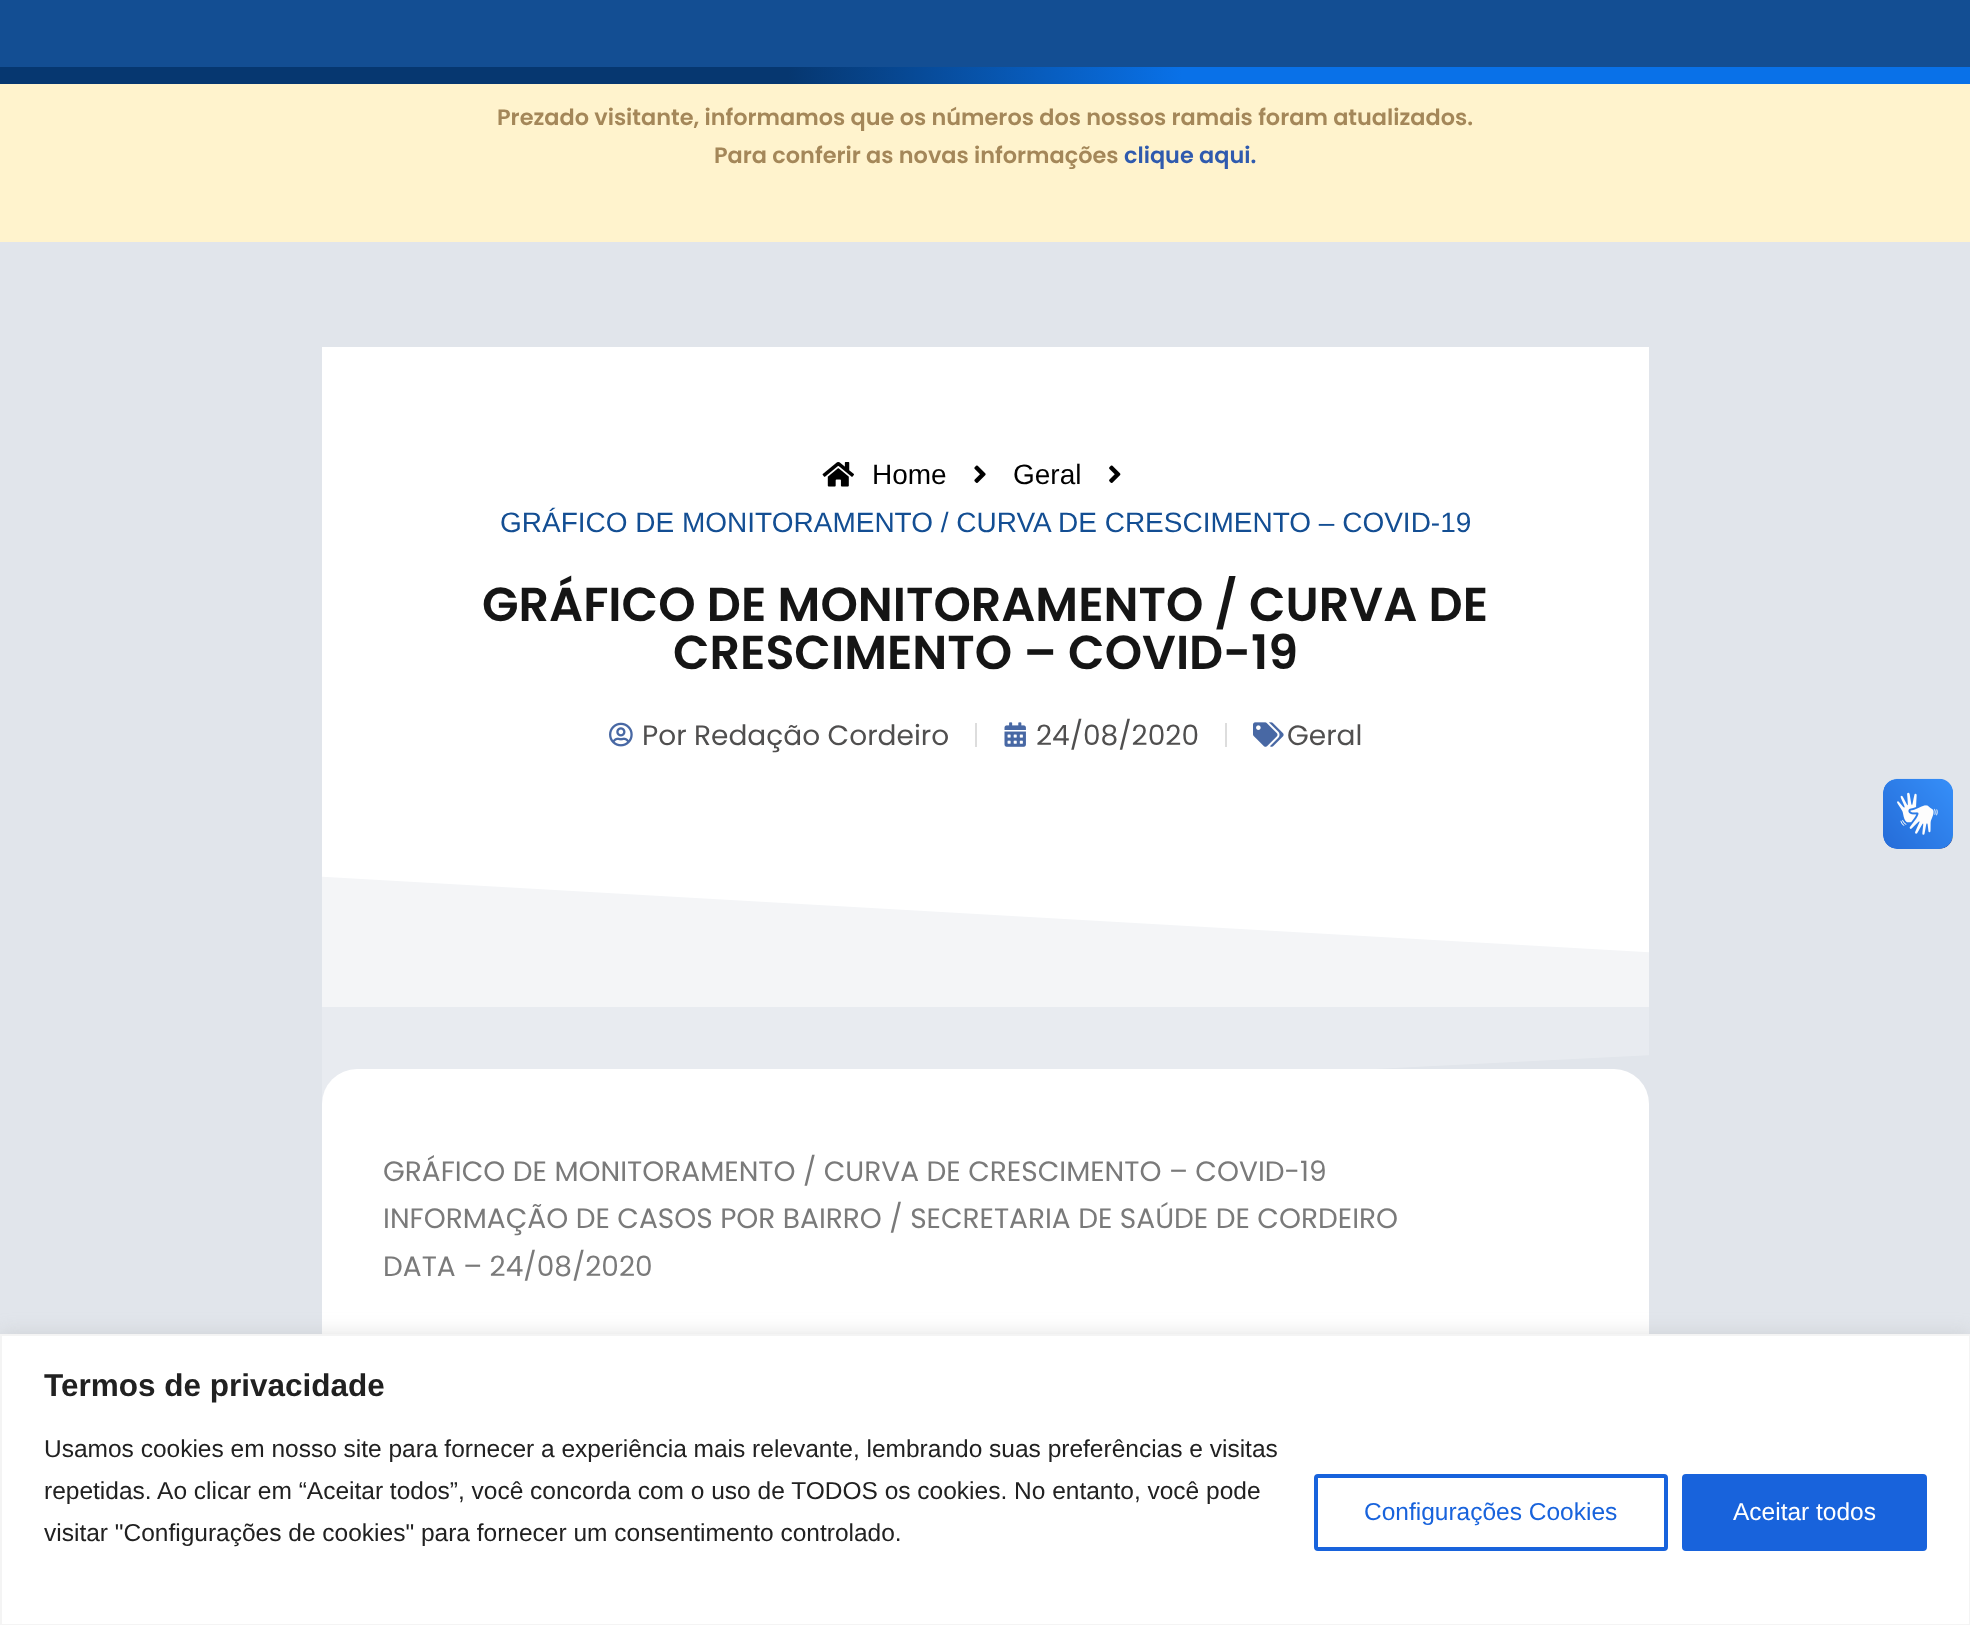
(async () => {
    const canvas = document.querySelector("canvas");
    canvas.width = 1970;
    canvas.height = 1625;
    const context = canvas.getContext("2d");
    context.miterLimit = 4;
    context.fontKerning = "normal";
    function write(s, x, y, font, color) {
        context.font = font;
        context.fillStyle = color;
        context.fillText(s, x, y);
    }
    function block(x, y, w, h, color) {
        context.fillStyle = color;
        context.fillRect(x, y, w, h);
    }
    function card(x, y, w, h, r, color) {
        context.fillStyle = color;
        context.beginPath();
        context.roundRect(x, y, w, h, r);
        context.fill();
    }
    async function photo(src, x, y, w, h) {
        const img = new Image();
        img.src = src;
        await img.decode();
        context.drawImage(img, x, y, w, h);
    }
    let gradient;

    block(0, 0, 1970, 1625, "rgb(225, 229, 235)");
    block(322, 876, 1327, 131, "rgb(240, 242, 245)");
    block(0, 0, 1970, 67, "rgb(19, 78, 147)");
    gradient = context.createLinearGradient(0, 75, 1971, 75);
    gradient.addColorStop(0, "rgb(6, 55, 112)");
    gradient.addColorStop(0.4, "rgb(6, 55, 112)");
    gradient.addColorStop(0.6, "rgb(9, 113, 232)");
    gradient.addColorStop(1, "rgb(9, 113, 232)");
    context.fillStyle = gradient;
    context.fillRect(0, 67, 1970, 17);
    block(0, 84, 1970, 158, "rgb(255, 243, 205)");
    write("Prezado visitante, informamos que os números dos nossos ramais foram atualizados.", 497, 125, "600 22.4px Poppins", "rgb(164, 135, 89)");
    write("Para conferir as novas informações", 714, 163, "600 22.4px Poppins", "rgb(164, 135, 89)");
    write("clique aqui.", 1124, 163, "600 22.4px Poppins", "rgb(47, 90, 174)");
    block(322, 347, 1327, 476, "rgb(255, 255, 255)");
    await photo("media/1.png", 822, 462, 32, 25);
    write("Home", 872, 484, "28px Liberation Sans", "rgb(0, 0, 0)");
    await photo("media/2.png", 974, 465, 12, 18);
    write("Geral", 1013, 484, "28px Liberation Sans", "rgb(0, 0, 0)");
    await photo("media/3.png", 1109, 465, 12, 18);
    write("GRÁFICO DE MONITORAMENTO / CURVA DE CRESCIMENTO – COVID-19", 500, 532, "28px Liberation Sans", "rgb(19, 78, 147)");
    write("GRÁFICO DE MONITORAMENTO / CURVA DE", 482, 621, "600 47.6px Poppins", "rgb(21, 21, 21)");
    write("CRESCIMENTO – COVID-19", 673, 669, "600 47.6px Poppins", "rgb(21, 21, 21)");
    await photo("media/4.png", 609, 722, 24, 25);
    write("Por Redação Cordeiro", 642, 745, "28px Poppins", "rgb(80, 79, 79)");
    block(975, 723, 2, 24, "rgb(221, 221, 221)");
    await photo("media/5.png", 1004, 722, 22, 25);
    write("24/08/2020", 1036, 745, "28px Poppins", "rgb(80, 79, 79)");
    block(1225, 723, 2, 24, "rgb(221, 221, 221)");
    await photo("media/6.png", 1253, 722, 31, 25);
    write("Geral", 1287, 745, "28px Poppins", "rgb(80, 79, 79)");
    context.save();
    context.beginPath();
    context.rect(322, 823, 1327, 350);
    context.clip();
    context.fillStyle = "rgb(255, 255, 255)";
    context.beginPath();
    context.moveTo(-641, 822);
    context.lineTo(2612, 822);
    context.lineTo(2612, 1007);
    context.closePath();
    context.fill();
    context.fillStyle = "rgba(255, 255, 255, 0.25)";
    context.beginPath();
    context.moveTo(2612, 822);
    context.lineTo(-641, 822);
    context.lineTo(-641, 1170);
    context.lineTo(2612, 1007);
    context.closePath();
    context.fill();
    context.restore();
    card(322, 1069, 1327, 448, 35, "rgb(255, 255, 255)");
    write("GRÁFICO DE MONITORAMENTO / CURVA DE CRESCIMENTO – COVID-19", 383, 1181, "28px Poppins", "rgb(122, 122, 122)");
    write("INFORMAÇÃO DE CASOS POR BAIRRO / SECRETARIA DE SAÚDE DE CORDEIRO", 383, 1228, "28px Poppins", "rgb(122, 122, 122)");
    write("DATA – 24/08/2020", 383, 1276, "28px Poppins", "rgb(122, 122, 122)");
    await photo("media/7.png", 1883, 778, 70, 71);
    await photo("media/8.png", 1883, 779, 70, 70);
    context.fillStyle = "rgba(172, 171, 171, 0.3)";
    context.filter = "blur(9px)";
    context.beginPath();
    context.rect(0, 1332, 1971, 292);
    context.fill();
    context.filter = "none";
    context.fillStyle = "rgb(255, 255, 255)";
    context.beginPath();
    context.rect(1, 1335, 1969, 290);
    context.fill();
    context.strokeStyle = "rgb(244, 244, 244)";
    context.lineWidth = 2;
    context.stroke();
    write("Termos de privacidade", 44, 1396, "bold 31.5px Liberation Sans", "rgb(33, 33, 33)");
    write("Usamos cookies em nosso site para fornecer a experiência mais relevante, lembrando suas preferências e visitas", 44, 1457, "24.5px Liberation Sans", "rgb(33, 33, 33)");
    write("repetidas. Ao clicar em “Aceitar todos”, você concorda com o uso de TODOS os cookies. No entanto, você pode", 44, 1499, "24.5px Liberation Sans", "rgb(33, 33, 33)");
    write("visitar \"Configurações de cookies\" para fornecer um consentimento controlado.", 44, 1541, "24.5px Liberation Sans", "rgb(33, 33, 33)");
    context.beginPath();
    context.roundRect(1316, 1476, 350, 73, 2);
    context.strokeStyle = "rgb(24, 99, 220)";
    context.lineWidth = 4;
    context.stroke();
    write("Configurações Cookies", 1364, 1520, "24.5px Liberation Sans", "rgb(24, 99, 220)");
    context.beginPath();
    context.roundRect(1684, 1476, 241, 73, 2);
    context.fill();
    context.stroke();
    write("Aceitar todos", 1733, 1520, "24.5px Liberation Sans", "rgb(255, 255, 255)");
})();
